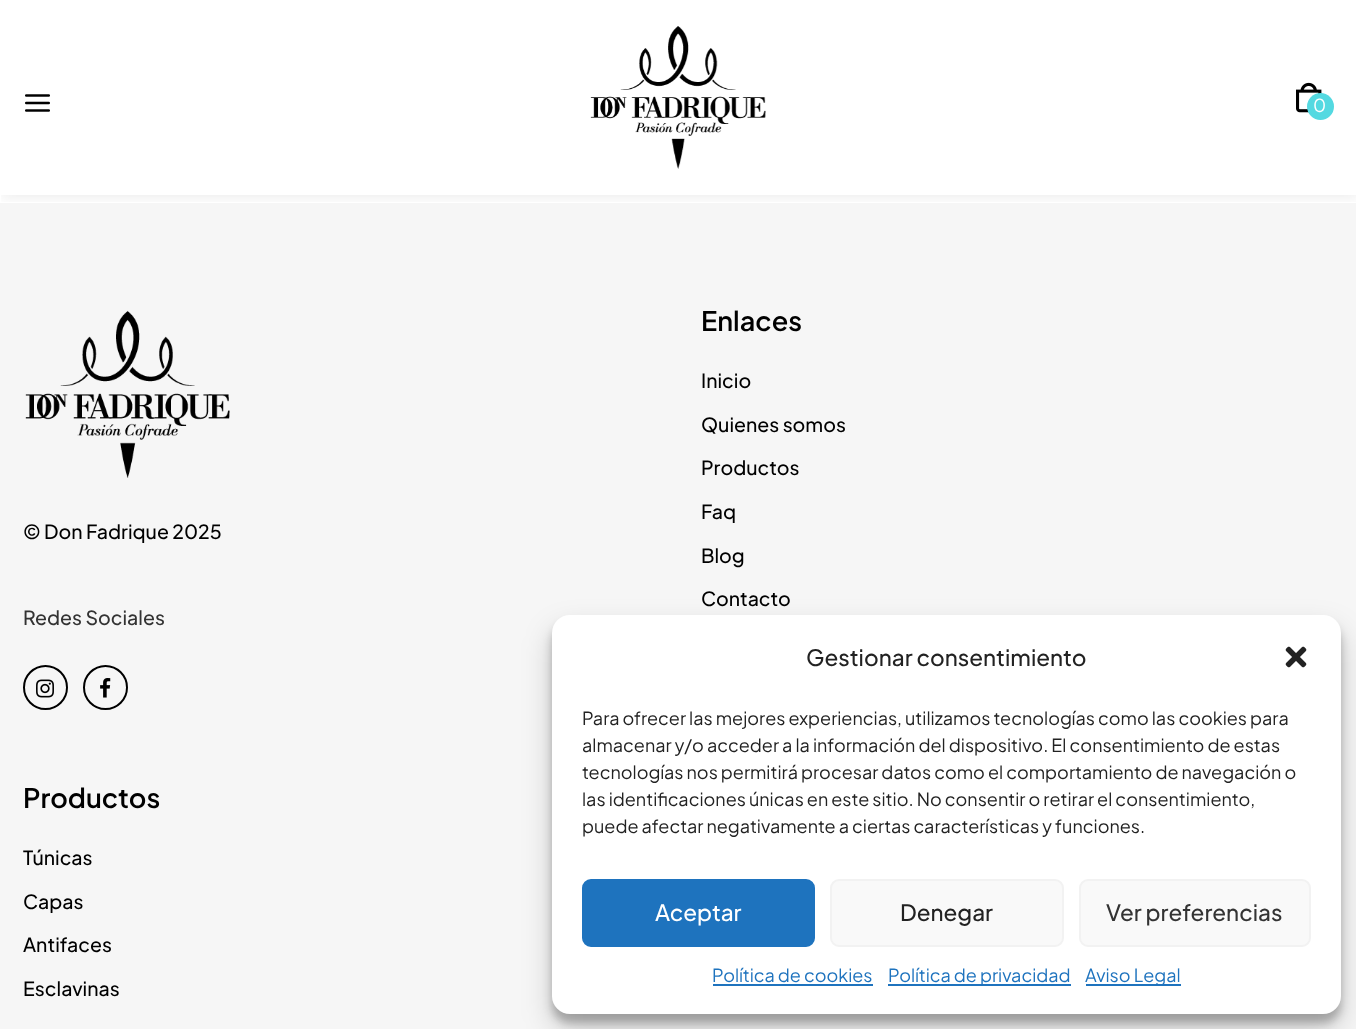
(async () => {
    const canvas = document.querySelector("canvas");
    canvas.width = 1356;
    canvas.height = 1029;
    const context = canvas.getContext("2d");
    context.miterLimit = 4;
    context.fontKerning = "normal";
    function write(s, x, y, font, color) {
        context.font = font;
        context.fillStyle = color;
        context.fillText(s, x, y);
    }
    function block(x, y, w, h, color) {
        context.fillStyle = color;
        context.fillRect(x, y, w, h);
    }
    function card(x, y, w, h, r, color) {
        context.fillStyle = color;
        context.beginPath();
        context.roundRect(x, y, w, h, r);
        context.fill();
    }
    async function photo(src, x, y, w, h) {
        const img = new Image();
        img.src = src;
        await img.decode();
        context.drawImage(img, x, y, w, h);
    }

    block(0, 0, 1356, 1029, "rgb(255, 255, 255)");
    block(0, 203, 1356, 826, "rgb(246, 246, 246)");
    context.save();
    context.beginPath();
    context.rect(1, 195, 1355, 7);
    context.clip();
    context.fillStyle = "rgba(0, 0, 0, 0.08)";
    context.filter = "blur(7.5px)";
    context.beginPath();
    context.rect(2, 2, 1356, 195);
    context.fill();
    context.filter = "none";
    context.restore();
    await photo("media/1.png", 25, 94, 25, 18);
    await photo("media/2.png", 590, 26, 176, 143);
    await photo("media/3.png", 1296, 82, 26, 31);
    context.fillStyle = "rgb(84, 217, 225)";
    context.beginPath();
    context.arc(1320.5, 106.5, 13.5, 0, Math.PI * 2);
    context.fill();
    write("0", 1313, 112, "18px Plus Jakarta Sans", "rgb(255, 255, 255)");
    await photo("media/4.png", 25, 310, 205, 168);
    write("© Don Fadrique 2025", 23, 539, "500 19.5px Plus Jakarta Sans", "rgb(0, 0, 0)");
    write("Redes Sociales", 23, 625, "500 19.5px Plus Jakarta Sans", "rgb(51, 51, 51)");
    context.beginPath();
    context.arc(45.5, 687.5, 21.5, 0, Math.PI * 2);
    context.strokeStyle = "rgb(0, 0, 0)";
    context.lineWidth = 2;
    context.stroke();
    await photo("media/5.png", 36, 679, 18, 19);
    context.beginPath();
    context.arc(105.5, 687.5, 21.5, 0, Math.PI * 2);
    context.stroke();
    await photo("media/6.png", 100, 678, 11, 20);
    write("Enlaces", 701, 331, "600 27px Plus Jakarta Sans", "rgb(0, 0, 0)");
    write("Inicio", 701, 388, "500 19.5px Plus Jakarta Sans", "rgb(0, 0, 0)");
    write("Quienes somos", 701, 432, "500 19.5px Plus Jakarta Sans", "rgb(0, 0, 0)");
    write("Productos", 701, 475, "500 19.5px Plus Jakarta Sans", "rgb(0, 0, 0)");
    write("Faq", 701, 519, "500 19.5px Plus Jakarta Sans", "rgb(0, 0, 0)");
    write("Blog", 701, 563, "500 19.5px Plus Jakarta Sans", "rgb(0, 0, 0)");
    write("Contacto", 701, 606, "500 19.5px Plus Jakarta Sans", "rgb(0, 0, 0)");
    write("Productos", 23, 808, "600 27px Plus Jakarta Sans", "rgb(0, 0, 0)");
    write("Túnicas", 23, 865, "500 19.5px Plus Jakarta Sans", "rgb(0, 0, 0)");
    write("Capas", 23, 909, "500 19.5px Plus Jakarta Sans", "rgb(0, 0, 0)");
    write("Antifaces", 23, 952, "500 19.5px Plus Jakarta Sans", "rgb(0, 0, 0)");
    write("Esclavinas", 23, 996, "500 19.5px Plus Jakarta Sans", "rgb(0, 0, 0)");
    context.fillStyle = "rgba(0, 0, 0, 0.23)";
    context.filter = "blur(4.5px)";
    context.beginPath();
    context.roundRect(552, 624, 789, 399, 18);
    context.fill();
    context.filter = "none";
    context.fillStyle = "rgba(0, 0, 0, 0.19)";
    context.filter = "blur(15px)";
    context.beginPath();
    context.roundRect(552, 630, 789, 399, 18);
    context.fill();
    context.filter = "none";
    card(552, 615, 789, 399, 18, "rgb(255, 255, 255)");
    write("Gestionar consentimiento", 806, 666, "500 22.5px Plus Jakarta Sans", "rgb(34, 34, 34)");
    await photo("media/7.png", 1285, 646, 22, 22);
    write("Para ofrecer las mejores experiencias, utilizamos tecnologías como las cookies para", 582, 725, "18px Plus Jakarta Sans", "rgb(34, 34, 34)");
    write("almacenar y/o acceder a la información del dispositivo. El consentimiento de estas", 582, 752, "18px Plus Jakarta Sans", "rgb(34, 34, 34)");
    write("tecnologías nos permitirá procesar datos como el comportamiento de navegación o", 582, 779, "18px Plus Jakarta Sans", "rgb(34, 34, 34)");
    write("las identificaciones únicas en este sitio. No consentir o retirar el consentimiento,", 582, 806, "18px Plus Jakarta Sans", "rgb(34, 34, 34)");
    write("puede afectar negativamente a ciertas características y funciones.", 582, 833, "18px Plus Jakarta Sans", "rgb(34, 34, 34)");
    context.fillStyle = "rgb(30, 115, 190)";
    context.beginPath();
    context.roundRect(583, 880, 231, 66, 8);
    context.fill();
    context.strokeStyle = "rgb(30, 115, 190)";
    context.stroke();
    write("Aceptar", 655, 921, "500 22.5px Plus Jakarta Sans", "rgb(255, 255, 255)");
    context.fillStyle = "rgb(249, 249, 249)";
    context.beginPath();
    context.roundRect(831, 880, 232, 66, 8);
    context.fill();
    context.strokeStyle = "rgb(242, 242, 242)";
    context.stroke();
    write("Denegar", 900, 921, "500 22.5px Plus Jakarta Sans", "rgb(34, 34, 34)");
    context.fillStyle = "rgb(249, 249, 249)";
    context.beginPath();
    context.roundRect(1080, 880, 230, 66, 8);
    context.fill();
    context.stroke();
    write("Ver preferencias", 1106, 921, "500 22.5px Plus Jakarta Sans", "rgb(51, 51, 51)");
    write("Política de cookies", 712, 982, "18px Plus Jakarta Sans", "rgb(30, 115, 190)");
    block(713, 984, 160, 2, "rgb(30, 115, 190)");
    block(888, 984, 183, 2, "rgb(30, 115, 190)");
    write("Política de privacidad", 888, 982, "18px Plus Jakarta Sans", "rgb(30, 115, 190)");
    block(1086, 984, 95, 2, "rgb(30, 115, 190)");
    write("Aviso Legal", 1085, 982, "18px Plus Jakarta Sans", "rgb(30, 115, 190)");
})();
